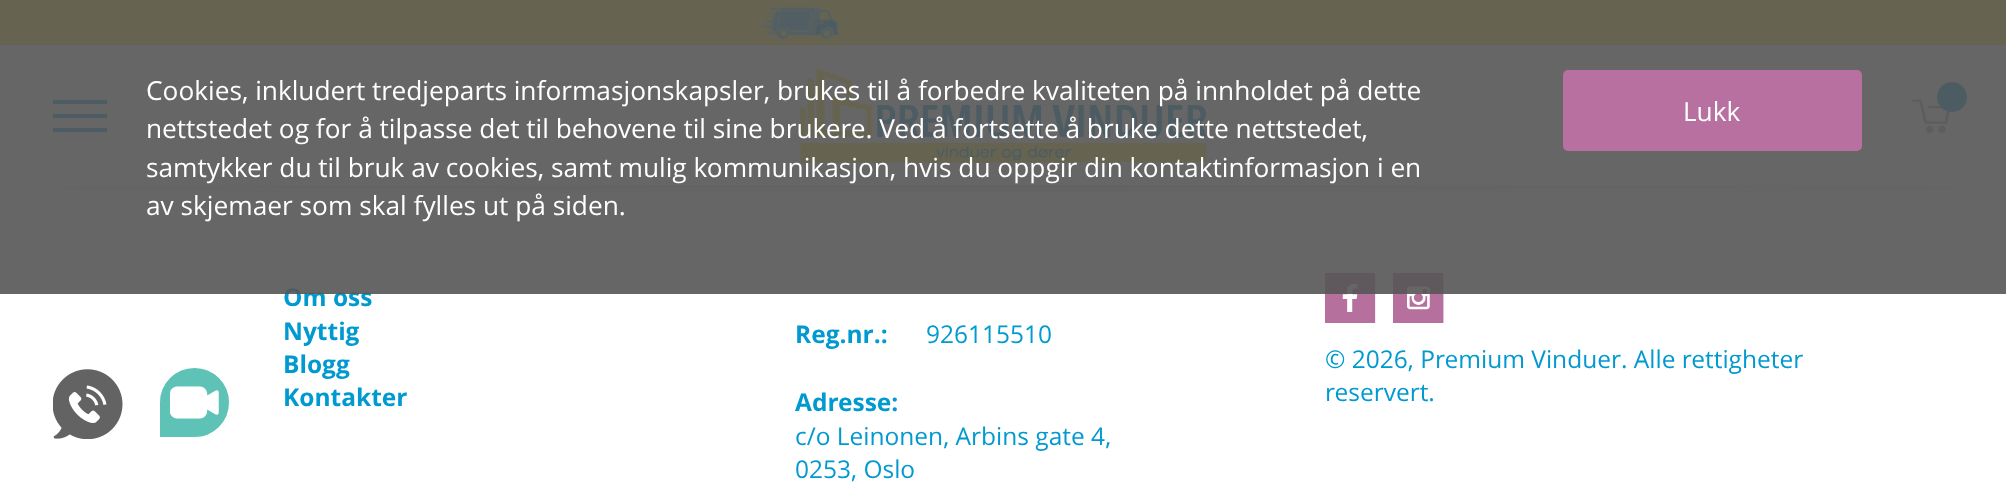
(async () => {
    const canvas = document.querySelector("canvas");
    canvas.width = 2006;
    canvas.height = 491;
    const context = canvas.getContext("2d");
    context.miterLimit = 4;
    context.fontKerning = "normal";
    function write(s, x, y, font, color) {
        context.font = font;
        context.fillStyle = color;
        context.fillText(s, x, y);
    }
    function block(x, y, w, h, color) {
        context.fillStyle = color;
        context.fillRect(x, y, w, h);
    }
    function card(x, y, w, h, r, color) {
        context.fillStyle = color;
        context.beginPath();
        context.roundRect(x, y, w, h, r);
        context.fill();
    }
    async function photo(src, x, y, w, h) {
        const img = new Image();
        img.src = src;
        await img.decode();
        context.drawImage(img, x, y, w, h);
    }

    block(0, 0, 2006, 491, "rgb(255, 255, 255)");
    block(0, 0, 2006, 45, "rgb(249, 236, 35)");
    block(0, 45, 2006, 1, "rgb(254, 252, 222)");
    await photo("media/1.png", 760, 6, 79, 35);
    await photo("media/2.png", 760, 6, 80, 34);
    block(53, 100, 54, 4, "rgb(0, 153, 208)");
    block(53, 114, 54, 4, "rgb(0, 153, 208)");
    block(53, 128, 54, 4, "rgb(0, 153, 208)");
    block(1024, 82, 119, 5, "rgb(217, 240, 248)");
    await photo("media/3.png", 800, 67, 407, 96);
    await photo("media/4.png", 1911, 99, 39, 35);
    context.fillStyle = "rgb(0, 153, 208)";
    context.beginPath();
    context.arc(1952, 97, 15, 0, Math.PI * 2);
    context.fill();
    await photo("media/5.png", 0, 185, 2006, 9);
    block(558, 82, 63, 5, "rgb(217, 240, 248)");
    write("Om oss", 283, 306, "bold 24.5px Open Sans", "rgb(0, 153, 208)");
    await photo("media/8.png", 1325, 273, 51, 50);
    await photo("media/9.png", 1393, 273, 51, 50);
    block(0, 0, 2006, 294, "rgba(85, 85, 85, 0.9)");
    write("Cookies, inkludert tredjeparts informasjonskapsler, brukes til å forbedre kvaliteten på innholdet på dette", 146, 100, "26.25px Open Sans", "rgb(255, 255, 255)");
    write("nettstedet og for å tilpasse det til behovene til sine brukere. Ved å fortsette å bruke dette nettstedet,", 146, 138, "26.25px Open Sans", "rgb(255, 255, 255)");
    write("samtykker du til bruk av cookies, samt mulig kommunikasjon, hvis du oppgir din kontaktinformasjon i en", 146, 177, "26.25px Open Sans", "rgb(255, 255, 255)");
    write("av skjemaer som skal fylles ut på siden.", 146, 215, "26.25px Open Sans", "rgb(255, 255, 255)");
    card(1563, 70, 299, 81, 5, "rgb(184, 112, 160)");
    write("Lukk", 1683, 121, "26.25px Open Sans", "rgb(255, 255, 255)");
    await photo("media/6.png", 53, 369, 70, 70);
    context.fillStyle = "rgb(94, 194, 183)";
    context.beginPath();
    context.roundRect(159, 367, 71, 71, [35.5, 35.5, 35.5, 0]);
    context.fill();
    context.strokeStyle = "rgb(255, 255, 255)";
    context.lineWidth = 2;
    context.stroke();
    await photo("media/7.png", 170, 386, 49, 33);
    write("Nyttig", 283, 340, "bold 24.5px Open Sans", "rgb(0, 153, 208)");
    write("Blogg", 283, 373, "bold 24.5px Open Sans", "rgb(0, 153, 208)");
    write("Kontakter", 283, 406, "bold 24.5px Open Sans", "rgb(0, 153, 208)");
    write("Reg.nr.:", 795, 343, "bold 24.5px Open Sans", "rgb(0, 153, 208)");
    write("926115510", 926, 343, "24.5px Open Sans", "rgb(0, 153, 208)");
    write("Adresse:", 795, 411, "bold 24.5px Open Sans", "rgb(0, 153, 208)");
    write("c/o Leinonen, Arbins gate 4,", 795, 445, "24.5px Open Sans", "rgb(0, 153, 208)");
    write("0253, Oslo", 795, 478, "24.5px Open Sans", "rgb(0, 153, 208)");
    write("© 2026, Premium Vinduer. Alle rettigheter", 1325, 368, "24.5px Open Sans", "rgb(0, 153, 208)");
    write("reservert.", 1325, 401, "24.5px Open Sans", "rgb(0, 153, 208)");
})();
